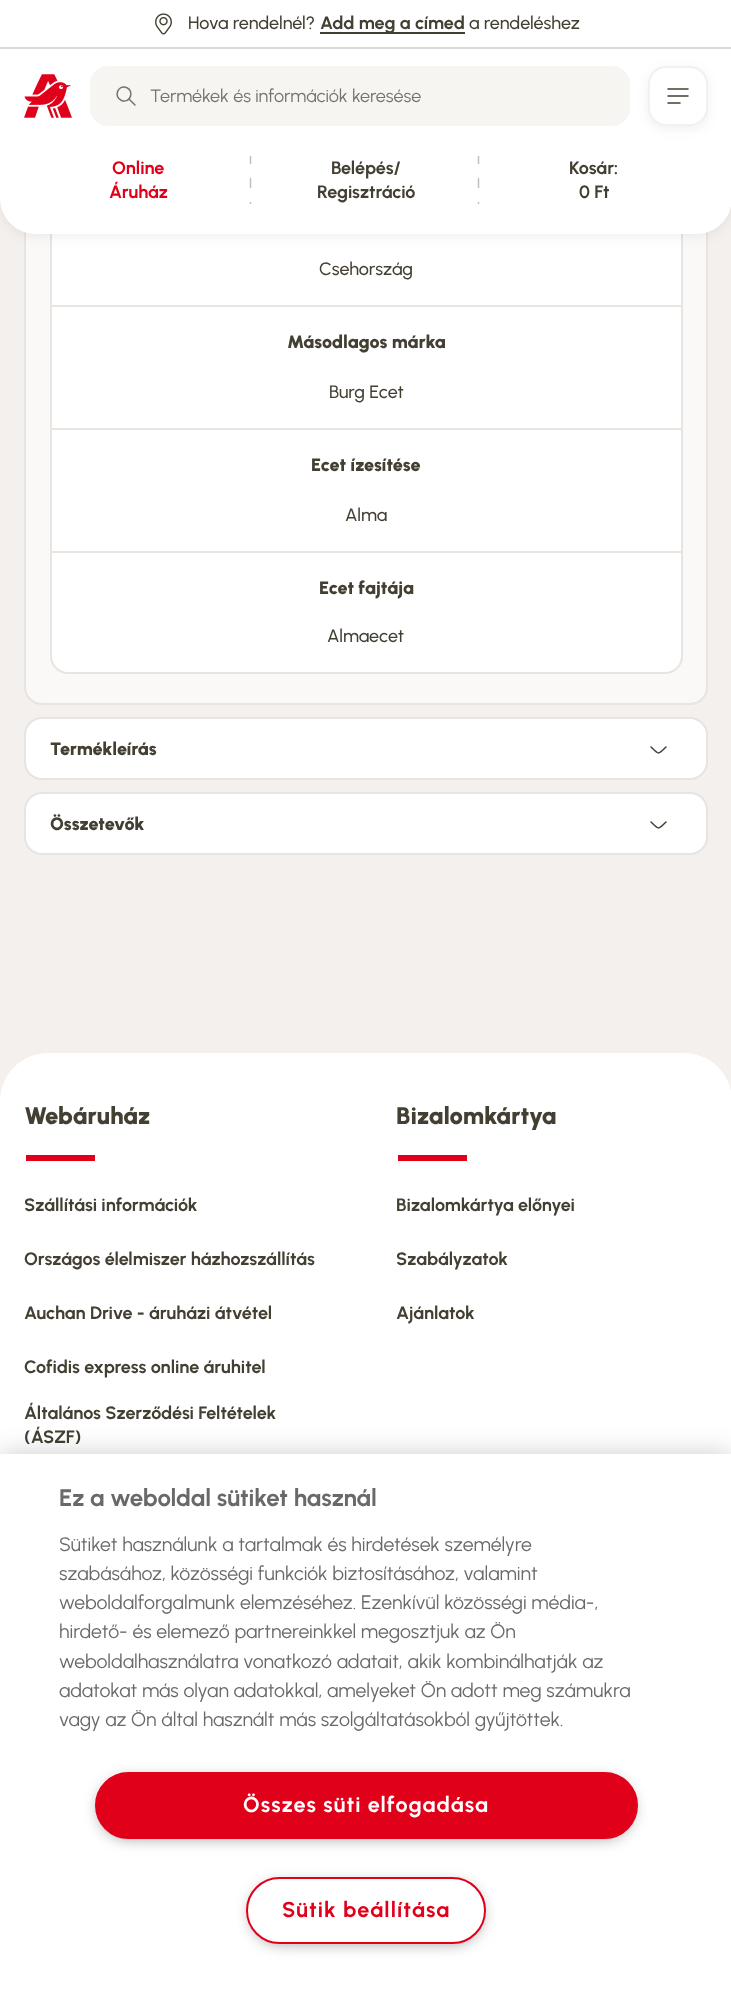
(async () => {
    const canvas = document.querySelector("canvas");
    canvas.width = 731;
    canvas.height = 1989;
    const context = canvas.getContext("2d");
    context.miterLimit = 4;
    context.fontKerning = "normal";
    function write(s, x, y, font, color) {
        context.font = font;
        context.fillStyle = color;
        context.fillText(s, x, y);
    }
    function block(x, y, w, h, color) {
        context.fillStyle = color;
        context.fillRect(x, y, w, h);
    }
    async function photo(src, x, y, w, h) {
        const img = new Image();
        img.src = src;
        await img.decode();
        context.drawImage(img, x, y, w, h);
    }

    block(0, 0, 731, 1989, "rgb(243, 240, 237)");
    context.fillStyle = "rgb(250, 249, 248)";
    context.beginPath();
    context.moveTo(25, -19);
    context.lineTo(707, -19);
    context.lineTo(707, 687);
    context.bezierCurveTo(707, 696.5, 699.5, 704, 690, 704);
    context.lineTo(42, 704);
    context.bezierCurveTo(32.5, 704, 25, 696.5, 25, 687);
    context.closePath();
    context.fill();
    context.strokeStyle = "rgb(231, 228, 225)";
    context.lineWidth = 2;
    context.stroke();
    context.fillStyle = "rgb(255, 255, 255)";
    context.beginPath();
    context.roundRect(51, -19, 631, 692, 17);
    context.fill();
    context.stroke();
    context.fillStyle = "rgba(67, 63, 50, 0.08)";
    context.filter = "blur(6px)";
    context.beginPath();
    context.roundRect(0, 3, 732, 234, 36);
    context.fill();
    context.filter = "none";
    context.fillStyle = "rgb(255, 255, 255)";
    context.beginPath();
    context.moveTo(0, 0);
    context.lineTo(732, 0);
    context.lineTo(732, 198);
    context.bezierCurveTo(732, 218, 716, 234, 696, 234);
    context.lineTo(36, 234);
    context.bezierCurveTo(16, 234, 0, 218, 0, 198);
    context.closePath();
    context.fill();
    block(0, 47, 731, 2, "rgb(219, 216, 213)");
    await photo("media/1.png", 155, 13, 17, 22);
    write("Hova rendelnél?", 188, 29, "500 18px Urbanist", "rgb(67, 63, 50)");
    block(320, 32, 145, 2, "rgb(67, 63, 50)");
    write("Add meg a címed", 320, 29, "bold 18px Urbanist", "rgb(67, 63, 50)");
    write("a rendeléshez", 469, 29, "500 18px Urbanist", "rgb(67, 63, 50)");
    await photo("media/2.png", 24, 74, 48, 44);
    context.fillStyle = "rgba(67, 63, 50, 0.08)";
    context.filter = "blur(6px)";
    context.beginPath();
    context.roundRect(648, 69, 60, 60, 18);
    context.fill();
    context.filter = "none";
    context.fillStyle = "rgb(247, 245, 242)";
    context.beginPath();
    context.roundRect(91, 67, 538, 58, 17);
    context.fill();
    context.strokeStyle = "rgb(247, 245, 242)";
    context.stroke();
    context.beginPath();
    context.moveTo(129.5, 99.5);
    context.lineTo(135, 105);
    context.moveTo(126.5, 87.5);
    context.bezierCurveTo(135, 91, 130, 104, 121.5, 100.5);
    context.bezierCurveTo(113, 97, 118, 84, 126.5, 87.5);
    context.closePath();
    context.strokeStyle = "rgb(117, 115, 107)";
    context.lineWidth = 1.5;
    context.lineCap = "round";
    context.lineJoin = "round";
    context.stroke();
    write("Termékek és információk keresése", 150, 102, "18px Urbanist", "rgb(117, 115, 107)");
    context.fillStyle = "rgb(255, 255, 255)";
    context.beginPath();
    context.roundRect(649, 67, 58, 58, 17);
    context.fill();
    context.strokeStyle = "rgb(243, 240, 237)";
    context.lineWidth = 2;
    context.lineJoin = "miter";
    context.stroke();
    context.beginPath();
    context.moveTo(668, 96);
    context.lineTo(688, 96);
    context.moveTo(668, 89);
    context.lineTo(688, 89);
    context.moveTo(668, 103);
    context.lineTo(680, 103);
    context.strokeStyle = "rgb(67, 63, 50)";
    context.lineWidth = 1.5;
    context.lineJoin = "round";
    context.stroke();
    write("Online", 112, 174, "bold 18px Urbanist", "rgb(225, 0, 25)");
    write("Áruház", 109, 198, "bold 18px Urbanist", "rgb(225, 0, 25)");
    context.save();
    context.beginPath();
    context.rect(249, 156, 3, 48);
    context.clip();
    context.beginPath();
    context.moveTo(250.5, 154.5);
    context.lineTo(250.5, 163.5);
    context.moveTo(250.5, 178.5);
    context.lineTo(250.5, 187.5);
    context.moveTo(250.5, 202.5);
    context.lineTo(250.5, 204);
    context.strokeStyle = "rgb(194, 192, 190)";
    context.lineJoin = "miter";
    context.stroke();
    context.restore();
    write("Belépés/", 331, 174, "bold 18px Urbanist", "rgb(67, 63, 50)");
    write("Regisztráció", 317, 198, "bold 18px Urbanist", "rgb(67, 63, 50)");
    context.save();
    context.beginPath();
    context.rect(477, 156, 3, 48);
    context.clip();
    context.beginPath();
    context.moveTo(478.5, 154.5);
    context.lineTo(478.5, 163.5);
    context.moveTo(478.5, 178.5);
    context.lineTo(478.5, 187.5);
    context.moveTo(478.5, 202.5);
    context.lineTo(478.5, 204);
    context.strokeStyle = "rgb(194, 192, 190)";
    context.lineJoin = "miter";
    context.stroke();
    context.restore();
    write("Kosár:", 569, 174, "bold 18px Urbanist", "rgb(67, 63, 50)");
    write("0 Ft", 579, 198, "bold 18px Urbanist", "rgb(67, 63, 50)");
    block(51, 305, 630, 2, "rgb(231, 228, 225)");
    write("Csehország", 319, 275, "500 18px Urbanist", "rgb(67, 63, 50)");
    write("Másodlagos márka", 287, 348, "900 18px Urbanist", "rgb(67, 63, 50)");
    block(51, 428, 630, 2, "rgb(231, 228, 225)");
    write("Burg Ecet", 329, 398, "500 18px Urbanist", "rgb(67, 63, 50)");
    write("Ecet ízesítése", 311, 471, "900 18px Urbanist", "rgb(67, 63, 50)");
    block(51, 551, 630, 2, "rgb(231, 228, 225)");
    write("Alma", 345, 521, "500 18px Urbanist", "rgb(67, 63, 50)");
    write("Ecet fajtája", 319, 594, "900 18px Urbanist", "rgb(67, 63, 50)");
    write("Almaecet", 327, 642, "500 18px Urbanist", "rgb(67, 63, 50)");
    context.fillStyle = "rgb(255, 255, 255)";
    context.beginPath();
    context.roundRect(25, 718, 682, 61, 17);
    context.fill();
    context.strokeStyle = "rgb(231, 228, 225)";
    context.lineWidth = 2;
    context.lineJoin = "miter";
    context.stroke();
    write("Termékleírás", 50, 755, "900 18px Urbanist", "rgb(67, 63, 50)");
    context.beginPath();
    context.moveTo(651, 747);
    context.bezierCurveTo(659, 755, 658, 755, 666, 747);
    context.strokeStyle = "rgb(67, 63, 50)";
    context.lineWidth = 1.5;
    context.lineJoin = "round";
    context.stroke();
    context.fillStyle = "rgb(255, 255, 255)";
    context.beginPath();
    context.roundRect(25, 793, 682, 61, 17);
    context.fill();
    context.strokeStyle = "rgb(231, 228, 225)";
    context.lineWidth = 2;
    context.lineJoin = "miter";
    context.stroke();
    write("Összetevők", 50, 830, "900 18px Urbanist", "rgb(67, 63, 50)");
    context.beginPath();
    context.moveTo(651, 822);
    context.bezierCurveTo(659, 830, 658, 830, 666, 822);
    context.strokeStyle = "rgb(67, 63, 50)";
    context.lineWidth = 1.5;
    context.lineJoin = "round";
    context.stroke();
    context.fillStyle = "rgb(255, 255, 255)";
    context.beginPath();
    context.moveTo(48, 1053);
    context.lineTo(684, 1053);
    context.bezierCurveTo(710.5, 1053, 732, 1074.5, 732, 1101);
    context.lineTo(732, 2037);
    context.lineTo(0, 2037);
    context.lineTo(0, 1101);
    context.bezierCurveTo(0, 1074.5, 21.5, 1053, 48, 1053);
    context.closePath();
    context.fill();
    write("Webáruház", 24, 1124, "900 24px Urbanist", "rgb(67, 63, 50)");
    block(26, 1155, 69, 6, "rgb(224, 0, 26)");
    write("Szállítási információk", 24, 1211, "bold 18px Urbanist", "rgb(67, 63, 50)");
    write("Országos élelmiszer házhozszállítás", 24, 1265, "bold 18px Urbanist", "rgb(67, 63, 50)");
    write("Auchan Drive - áruházi átvétel", 24, 1319, "bold 18px Urbanist", "rgb(67, 63, 50)");
    write("Cofidis express online áruhitel", 24, 1373, "bold 18px Urbanist", "rgb(67, 63, 50)");
    write("Általános Szerződési Feltételek", 24, 1419, "bold 18px Urbanist", "rgb(67, 63, 50)");
    write("(ÁSZF)", 24, 1443, "bold 18px Urbanist", "rgb(67, 63, 50)");
    write("Bizalomkártya", 396, 1124, "900 24px Urbanist", "rgb(67, 63, 50)");
    block(398, 1155, 69, 6, "rgb(224, 0, 26)");
    write("Bizalomkártya előnyei", 396, 1211, "bold 18px Urbanist", "rgb(67, 63, 50)");
    write("Szabályzatok", 396, 1265, "bold 18px Urbanist", "rgb(67, 63, 50)");
    write("Ajánlatok", 396, 1319, "bold 18px Urbanist", "rgb(67, 63, 50)");
    context.fillStyle = "rgba(0, 0, 0, 0.2)";
    context.filter = "blur(13.5px)";
    context.beginPath();
    context.rect(0, 1454, 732, 535);
    context.fill();
    context.filter = "none";
    block(0, 1454, 731, 535, "rgb(255, 255, 255)");
    write("Ez a weboldal sütiket használ", 59, 1506, "bold 24px Urbanist", "rgb(105, 105, 105)");
    write("Sütiket használunk a tartalmak és hirdetések személyre", 59, 1551, "19.5px Urbanist", "rgb(105, 105, 105)");
    write("szabásához, közösségi funkciók biztosításához, valamint", 59, 1580, "19.5px Urbanist", "rgb(105, 105, 105)");
    write("weboldalforgalmunk elemzéséhez. Ezenkívül közösségi média-,", 59, 1609, "19.5px Urbanist", "rgb(105, 105, 105)");
    write("hirdető- és elemező partnereinkkel megosztjuk az Ön", 59, 1638, "19.5px Urbanist", "rgb(105, 105, 105)");
    write("weboldalhasználatra vonatkozó adatait, akik kombinálhatják az", 59, 1668, "19.5px Urbanist", "rgb(105, 105, 105)");
    write("adatokat más olyan adatokkal, amelyeket Ön adott meg számukra", 59, 1697, "19.5px Urbanist", "rgb(105, 105, 105)");
    write("vagy az Ön által használt más szolgáltatásokból gyűjtöttek.", 59, 1726, "19.5px Urbanist", "rgb(105, 105, 105)");
    context.fillStyle = "rgb(153, 153, 153)";
    context.filter = "blur(7.5px)";
    context.beginPath();
    context.roundRect(99, 1779, 534, 59, 29.5);
    context.fill();
    context.filter = "none";
    context.fillStyle = "rgb(224, 0, 26)";
    context.beginPath();
    context.roundRect(96, 1773, 541, 65, 32.5);
    context.fill();
    context.strokeStyle = "rgb(224, 0, 26)";
    context.lineWidth = 2;
    context.lineJoin = "miter";
    context.stroke();
    context.letterSpacing = "1.1px";
    write("Összes süti elfogadása", 243, 1812, "bold 21.6px Urbanist", "rgb(255, 255, 255)");
    context.fillStyle = "rgb(153, 153, 153)";
    context.filter = "blur(7.5px)";
    context.beginPath();
    context.roundRect(251, 1884, 231, 59, 29.5);
    context.fill();
    context.filter = "none";
    context.fillStyle = "rgb(255, 255, 255)";
    context.beginPath();
    context.roundRect(247, 1878, 238, 65, 32.5);
    context.fill();
    context.stroke();
    write("Sütik beállítása", 282, 1917, "bold 21.6px Urbanist", "rgb(225, 0, 25)");
})();
